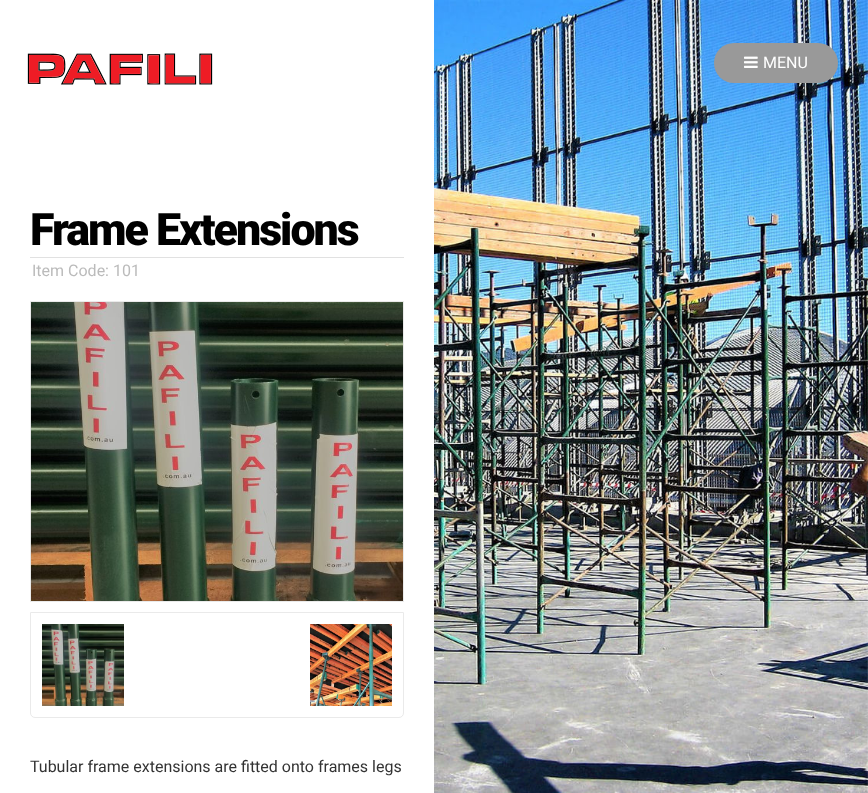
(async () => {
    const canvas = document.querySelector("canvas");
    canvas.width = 868;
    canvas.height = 793;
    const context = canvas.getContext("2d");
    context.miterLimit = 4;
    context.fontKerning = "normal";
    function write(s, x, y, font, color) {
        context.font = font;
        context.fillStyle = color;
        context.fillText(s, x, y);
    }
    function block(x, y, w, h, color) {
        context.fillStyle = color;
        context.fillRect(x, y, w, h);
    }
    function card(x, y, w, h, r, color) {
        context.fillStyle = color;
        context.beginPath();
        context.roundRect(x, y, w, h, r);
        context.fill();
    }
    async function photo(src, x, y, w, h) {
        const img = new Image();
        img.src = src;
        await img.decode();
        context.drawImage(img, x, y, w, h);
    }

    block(0, 0, 868, 793, "rgb(255, 255, 255)");
    await photo("media/1.png", 434, 0, 434, 793);
    card(714, 43, 124, 40, 20, "rgb(153, 153, 153)");
    await photo("media/2.png", 744, 56, 14, 12);
    write("MENU", 763, 68, "16px Roboto", "rgb(255, 255, 255)");
    await photo("media/3.png", 27, 53, 186, 32);
    block(30, 257, 374, 1, "rgb(225, 225, 225)");
    context.letterSpacing = "-2px";
    write("Frame Extensions", 30, 245, "900 44.75px Roboto", "rgb(0, 0, 0)");
    context.letterSpacing = "0px";
    write("Item Code: 101", 32, 276, "16px Roboto", "rgb(187, 187, 187)");
    await photo("media/4.png", 31, 302, 372, 299);
    context.strokeStyle = "rgb(234, 234, 234)";
    context.strokeRect(30.5, 301.5, 373, 300);
    context.beginPath();
    context.roundRect(30.5, 612.5, 373, 105, [0, 0, 4.5, 4.5]);
    context.stroke();
    await photo("media/5.png", 42, 624, 82, 82);
    await photo("media/6.png", 310, 624, 82, 82);
    write("Tubular frame extensions are fitted onto frames legs", 30, 772, "16px Roboto", "rgb(51, 51, 51)");
})();
